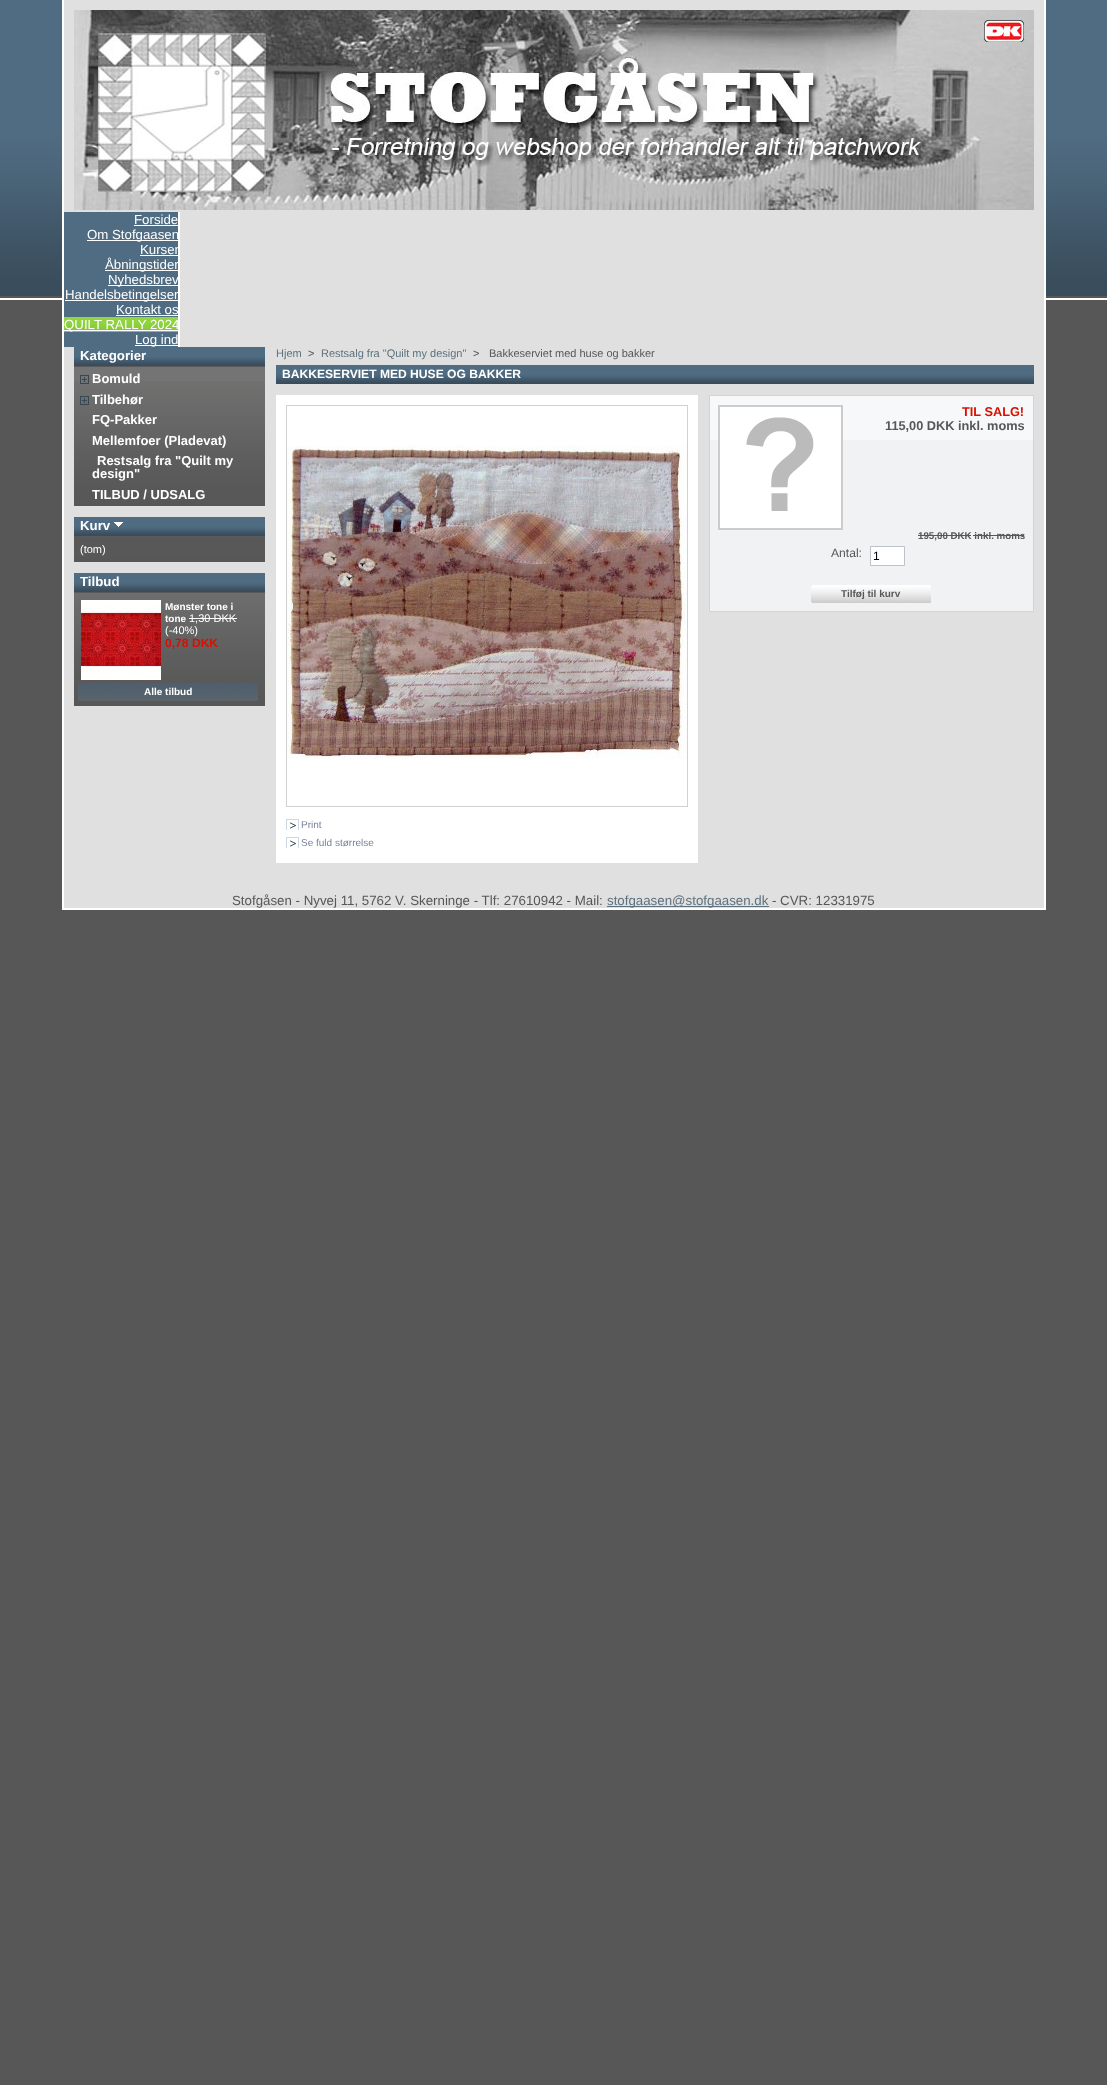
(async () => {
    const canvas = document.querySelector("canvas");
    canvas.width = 1107;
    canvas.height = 2085;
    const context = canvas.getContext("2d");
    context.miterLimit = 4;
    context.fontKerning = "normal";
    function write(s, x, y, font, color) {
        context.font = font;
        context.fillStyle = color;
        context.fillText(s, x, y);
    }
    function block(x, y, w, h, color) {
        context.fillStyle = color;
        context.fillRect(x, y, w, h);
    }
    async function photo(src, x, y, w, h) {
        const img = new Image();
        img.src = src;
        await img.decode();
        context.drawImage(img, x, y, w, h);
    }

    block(0, 0, 1107, 2085, "rgb(87, 87, 87)");
    await photo("media/1.png", 0, 0, 1107, 300);
    block(64, 0, 980, 908, "rgb(224, 224, 224)");
    block(1044, 0, 2, 910, "rgb(255, 255, 255)");
    block(62, 908, 984, 2, "rgb(255, 255, 255)");
    block(62, 0, 2, 910, "rgb(255, 255, 255)");
    await photo("media/2.png", 74, 10, 960, 200);
    block(64, 212, 114, 105, "rgb(80, 108, 130)");
    block(178, 212, 2, 135, "rgb(255, 255, 255)");
    write("Forside", 134, 224, "13.25px Liberation Sans", "rgb(255, 255, 255)");
    block(134, 225, 44, 1, "rgb(255, 255, 255)");
    block(87, 240, 91, 1, "rgb(255, 255, 255)");
    write("Om Stofgaasen", 87, 239, "13.25px Liberation Sans", "rgb(255, 255, 255)");
    write("Kurser", 140, 254, "13.25px Liberation Sans", "rgb(255, 255, 255)");
    block(140, 255, 38, 1, "rgb(255, 255, 255)");
    block(105, 270, 73, 1, "rgb(255, 255, 255)");
    write("Åbningstider", 105, 269, "13.25px Liberation Sans", "rgb(255, 255, 255)");
    block(108, 285, 70, 1, "rgb(255, 255, 255)");
    write("Nyhedsbrev", 108, 284, "13.25px Liberation Sans", "rgb(255, 255, 255)");
    block(65, 300, 113, 1, "rgb(255, 255, 255)");
    write("Handelsbetingelser", 65, 299, "13.25px Liberation Sans", "rgb(255, 255, 255)");
    write("Kontakt os", 116, 314, "13.25px Liberation Sans", "rgb(255, 255, 255)");
    block(116, 315, 62, 1, "rgb(255, 255, 255)");
    await photo("media/3.png", 64, 317, 114, 15);
    block(64, 330, 114, 1, "rgb(255, 255, 255)");
    write("QUILT RALLY 2024", 64, 329, "13.25px Liberation Sans", "rgb(255, 255, 255)");
    block(64, 332, 114, 15, "rgb(80, 108, 130)");
    block(135, 345, 43, 1, "rgb(255, 255, 255)");
    write("Log ind", 135, 344, "13.25px Liberation Sans", "rgb(255, 255, 255)");
    block(74, 501, 191, 5, "rgb(87, 87, 87)");
    await photo("media/4.png", 74, 347, 191, 19);
    block(74, 366, 191, 1, "rgb(89, 90, 94)");
    write("Kategorier", 80, 360, "bold 13.25px Liberation Sans", "rgb(255, 255, 255)");
    block(74, 367, 191, 14, "rgb(116, 116, 116)");
    await photo("media/5.png", 74, 381, 191, 120);
    await photo("media/6.png", 80, 375, 9, 9);
    write("Bomuld", 92, 383, "bold 13px Liberation Sans", "rgb(255, 255, 255)");
    await photo("media/7.png", 80, 396, 9, 9);
    write("Tilbehør", 92, 404, "bold 13px Liberation Sans", "rgb(255, 255, 255)");
    write("FQ-Pakker", 92, 424, "bold 13px Liberation Sans", "rgb(255, 255, 255)");
    write("Mellemfoer (Pladevat)", 92, 445, "bold 13px Liberation Sans", "rgb(255, 255, 255)");
    write("Restsalg fra \"Quilt my", 97, 465, "bold 13px Liberation Sans", "rgb(255, 255, 255)");
    write("design\"", 92, 478, "bold 13px Liberation Sans", "rgb(255, 255, 255)");
    write("TILBUD / UDSALG", 92, 499, "bold 13px Liberation Sans", "rgb(255, 255, 255)");
    block(74, 557, 191, 5, "rgb(87, 87, 87)");
    await photo("media/4.png", 74, 517, 191, 19);
    block(74, 536, 191, 1, "rgb(89, 90, 94)");
    write("Kurv", 80, 530, "bold 13.25px Liberation Sans", "rgb(255, 255, 255)");
    await photo("media/8.png", 114, 522, 9, 5);
    block(74, 537, 191, 20, "rgb(88, 88, 88)");
    write("(tom)", 80, 553, "11px Liberation Sans", "rgb(255, 255, 255)");
    block(74, 701, 191, 5, "rgb(87, 87, 87)");
    await photo("media/4.png", 74, 573, 191, 19);
    block(74, 592, 191, 1, "rgb(89, 90, 94)");
    write("Tilbud", 80, 586, "bold 13.25px Liberation Sans", "rgb(255, 255, 255)");
    await photo("media/9.png", 74, 593, 191, 108);
    await photo("media/10.png", 81, 600, 80, 80);
    write("Mønster tone i", 165, 610, "bold 10px Liberation Sans", "rgb(255, 255, 255)");
    write("tone", 165, 622, "bold 10px Liberation Sans", "rgb(255, 255, 255)");
    write("1,30 DKK", 189, 622, "11px Liberation Sans", "rgb(255, 255, 255)");
    block(189, 618, 48, 1, "rgb(255, 255, 255)");
    write("(-40%)", 165, 634, "11px Liberation Sans", "rgb(255, 255, 255)");
    write("0,78 DKK", 165, 647, "bold 12.1px Liberation Sans", "rgb(218, 15, 0)");
    await photo("media/11.png", 78, 683, 180, 18);
    write("Alle tilbud", 144, 695, "bold 10px Liberation Sans", "rgb(255, 255, 255)");
    write("Hjem", 276, 357, "11px Liberation Sans", "rgb(93, 113, 126)");
    write(">", 308, 357, "11px Liberation Sans", "rgb(87, 87, 87)");
    write("Restsalg fra \"Quilt my design\"", 321, 357, "11px Liberation Sans", "rgb(93, 113, 126)");
    write(">", 473, 357, "11px Liberation Sans", "rgb(87, 87, 87)");
    write("Bakkeserviet med huse og bakker", 489, 357, "11px Liberation Sans", "rgb(87, 87, 87)");
    await photo("media/12.png", 276, 365, 758, 19);
    write("BAKKESERVIET MED HUSE OG BAKKER", 282, 378, "bold 12.1px Liberation Sans", "rgb(255, 255, 255)");
    block(710, 440, 323, 171, "rgb(241, 242, 244)");
    block(710, 396, 323, 44, "rgb(247, 248, 249)");
    context.strokeStyle = "rgb(208, 211, 216)";
    context.strokeRect(709.5, 395.5, 324, 216);
    await photo("media/13.png", 718, 405, 125, 125);
    write("TIL SALG!", 962, 416, "bold 12.75px Liberation Sans", "rgb(218, 15, 0)");
    write("115,00 DKK inkl. moms", 885, 430, "bold 12.75px Liberation Sans", "rgb(87, 87, 87)");
    write("195,00 DKK inkl. moms", 918, 539, "bold 9.75px Liberation Sans", "rgb(87, 87, 87)");
    block(918, 535, 53, 1, "rgb(87, 87, 87)");
    block(973, 535, 51, 1, "rgb(87, 87, 87)");
    write("Antal:", 831, 557, "12.1px Liberation Sans", "rgb(87, 87, 87)");
    context.fillStyle = "rgb(255, 255, 255)";
    context.beginPath();
    context.rect(870.5, 546.5, 34, 19);
    context.fill();
    context.strokeStyle = "rgb(189, 194, 201)";
    context.stroke();
    write("1", 873, 560, "12px Liberation Sans", "rgb(0, 0, 0)");
    block(811, 585, 1, 18, "rgb(239, 239, 239)");
    await photo("media/14.png", 811, 585, 120, 18);
    write("Tilføj til kurv", 841, 597, "bold 10px Liberation Sans", "rgb(87, 87, 87)");
    block(276, 395, 422, 468, "rgb(255, 255, 255)");
    context.strokeStyle = "rgb(208, 209, 213)";
    context.strokeRect(286.5, 405.5, 401, 401);
    await photo("media/15.png", 287, 445, 400, 314);
    await photo("media/16.png", 286, 819, 13, 11);
    write("Print", 301, 828, "10px Liberation Sans", "rgb(118, 131, 155)");
    await photo("media/16.png", 286, 837, 13, 11);
    write("Se fuld størrelse", 301, 846, "10px Liberation Sans", "rgb(118, 131, 155)");
    write("Stofgåsen - Nyvej 11, 5762 V. Skerninge - Tlf: 27610942 - Mail:", 232, 905, "13.3px Liberation Sans", "rgb(87, 87, 87)");
    block(607, 906, 162, 1, "rgb(93, 113, 126)");
    write("stofgaasen@stofgaasen.dk", 607, 905, "13.3px Liberation Sans", "rgb(93, 113, 126)");
    write("- CVR: 12331975", 772, 905, "13.3px Liberation Sans", "rgb(87, 87, 87)");
})();
